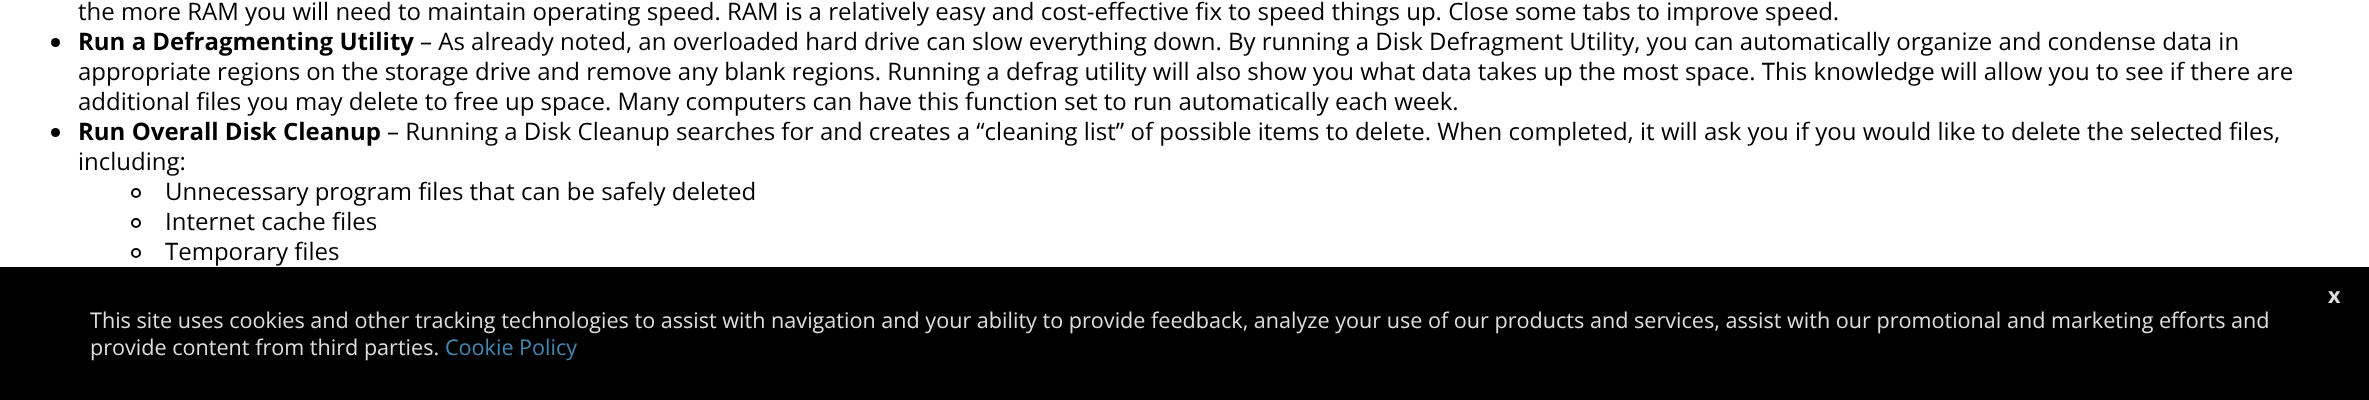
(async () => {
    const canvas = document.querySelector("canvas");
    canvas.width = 2369;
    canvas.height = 400;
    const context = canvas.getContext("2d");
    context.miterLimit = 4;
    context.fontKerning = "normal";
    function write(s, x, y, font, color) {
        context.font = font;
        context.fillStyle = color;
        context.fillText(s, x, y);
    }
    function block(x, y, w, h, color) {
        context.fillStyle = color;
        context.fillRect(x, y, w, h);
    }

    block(0, 0, 2369, 400, "rgb(255, 255, 255)");
    write("the more RAM you will need to maintain operating speed. RAM is a relatively easy and cost-effective fix to speed things up. Close some tabs to improve speed.", 78, 20, "24px Open Sans", "rgb(0, 0, 0)");
    context.beginPath();
    context.arc(55.5, 42.5, 4.5, 0, Math.PI * 2);
    context.fill();
    write("Run a Defragmenting Utility", 78, 50, "bold 24px Open Sans", "rgb(0, 0, 0)");
    write("– As already noted, an overloaded hard drive can slow everything down. By running a Disk Defragment Utility, you can automatically organize and condense data in", 420, 50, "24px Open Sans", "rgb(0, 0, 0)");
    write("appropriate regions on the storage drive and remove any blank regions. Running a defrag utility will also show you what data takes up the most space. This knowledge will allow you to see if there are", 78, 80, "24px Open Sans", "rgb(0, 0, 0)");
    write("additional files you may delete to free up space. Many computers can have this function set to run automatically each week.", 78, 110, "24px Open Sans", "rgb(0, 0, 0)");
    context.beginPath();
    context.arc(55.5, 132.5, 4.5, 0, Math.PI * 2);
    context.fill();
    write("Run Overall Disk Cleanup", 78, 140, "bold 24px Open Sans", "rgb(0, 0, 0)");
    write("– Running a Disk Cleanup searches for and creates a “cleaning list” of possible items to delete. When completed, it will ask you if you would like to delete the selected files,", 387, 140, "24px Open Sans", "rgb(0, 0, 0)");
    write("including:", 78, 170, "24px Open Sans", "rgb(0, 0, 0)");
    context.beginPath();
    context.arc(136, 193, 4, 0, Math.PI * 2);
    context.strokeStyle = "rgb(0, 0, 0)";
    context.lineWidth = 2;
    context.stroke();
    write("Unnecessary program files that can be safely deleted", 165, 200, "24px Open Sans", "rgb(0, 0, 0)");
    context.beginPath();
    context.arc(136, 223, 4, 0, Math.PI * 2);
    context.stroke();
    write("Internet cache files", 165, 230, "24px Open Sans", "rgb(0, 0, 0)");
    context.beginPath();
    context.arc(136, 253, 4, 0, Math.PI * 2);
    context.stroke();
    write("Temporary files", 165, 260, "24px Open Sans", "rgb(0, 0, 0)");
    block(0, 267, 2369, 133, "rgb(0, 0, 0)");
    write("x", 2328, 303, "bold 21.6px Open Sans", "rgb(221, 221, 221)");
    write("This site uses cookies and other tracking technologies to assist with navigation and your ability to provide feedback, analyze your use of our products and services, assist with our promotional and marketing efforts and", 90, 328, "21.6px Open Sans", "rgb(221, 221, 221)");
    write("provide content from third parties.", 90, 355, "21.6px Open Sans", "rgb(221, 221, 221)");
    write("Cookie Policy", 445, 355, "21.6px Open Sans", "rgb(66, 136, 178)");
})();
